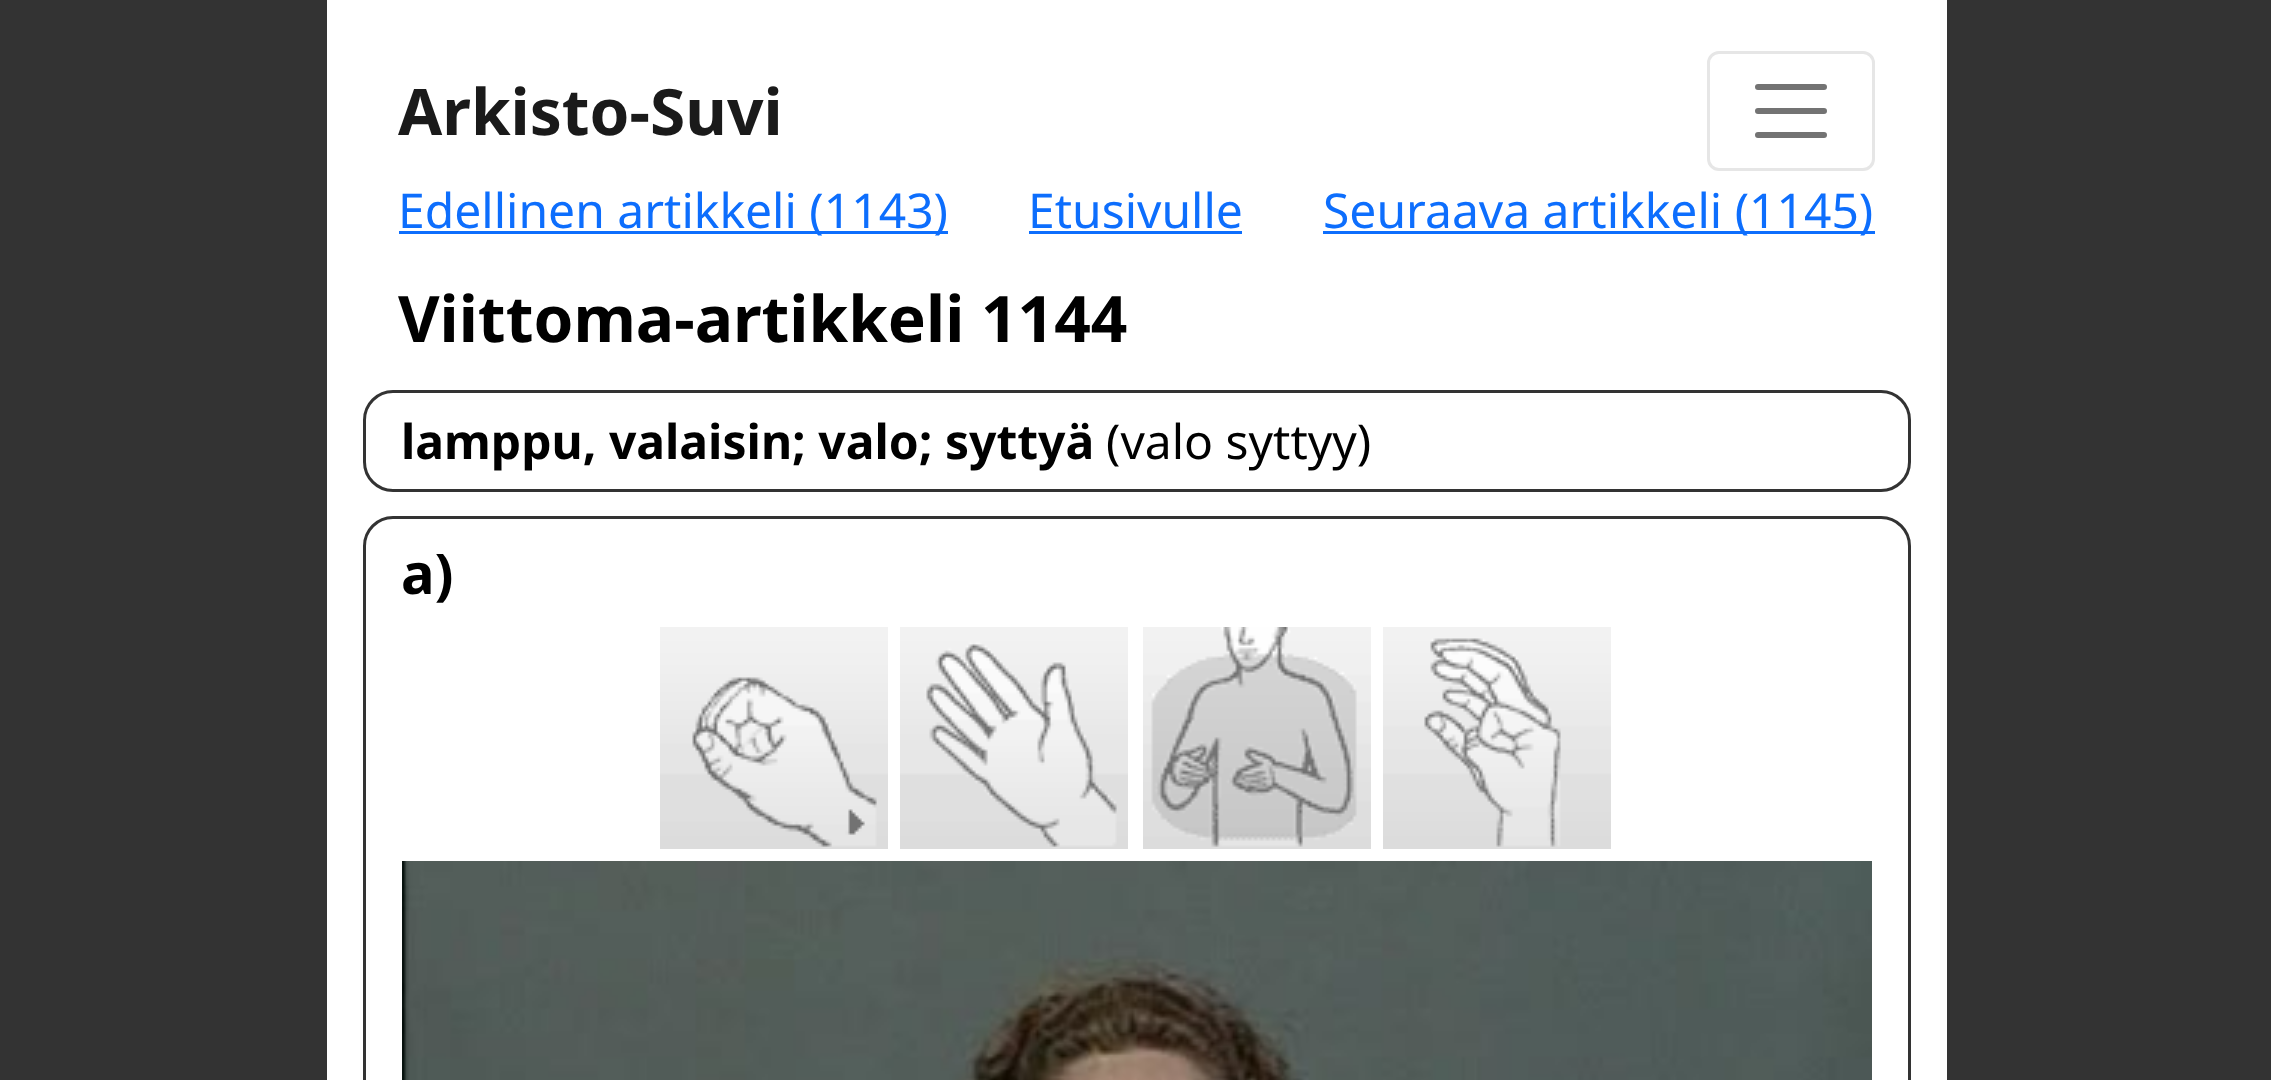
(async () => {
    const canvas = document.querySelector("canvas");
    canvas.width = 2271;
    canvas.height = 1080;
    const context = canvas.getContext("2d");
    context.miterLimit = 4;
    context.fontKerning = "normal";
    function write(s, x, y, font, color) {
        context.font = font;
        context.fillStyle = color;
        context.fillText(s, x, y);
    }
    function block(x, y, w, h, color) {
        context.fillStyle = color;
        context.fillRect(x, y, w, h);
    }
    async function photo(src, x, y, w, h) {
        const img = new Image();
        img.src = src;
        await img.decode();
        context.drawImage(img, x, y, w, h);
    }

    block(0, 0, 2271, 1080, "rgb(51, 51, 51)");
    block(327, 0, 1620, 1080, "rgb(255, 255, 255)");
    write("Arkisto-Suvi", 398, 135, "bold 64px Noto Sans", "rgb(26, 26, 26)");
    context.beginPath();
    context.roundRect(1708.5, 52.5, 165, 117, 10.5);
    context.strokeStyle = "rgb(230, 230, 230)";
    context.lineWidth = 3;
    context.stroke();
    context.beginPath();
    context.moveTo(1758, 87);
    context.lineTo(1824, 87);
    context.moveTo(1758, 111);
    context.lineTo(1824, 111);
    context.moveTo(1758, 135);
    context.lineTo(1824, 135);
    context.strokeStyle = "rgb(115, 115, 115)";
    context.lineWidth = 6;
    context.lineCap = "round";
    context.stroke();
    block(399, 231, 549, 3, "rgb(13, 110, 253)");
    write("Edellinen artikkeli (1143)", 398, 228, "48px Noto Sans", "rgb(13, 110, 253)");
    write("Etusivulle", 1028, 228, "48px Noto Sans", "rgb(13, 110, 253)");
    block(1029, 231, 213, 3, "rgb(13, 110, 253)");
    block(1323, 231, 552, 3, "rgb(13, 110, 253)");
    write("Seuraava artikkeli (1145)", 1323, 228, "48px Noto Sans", "rgb(13, 110, 253)");
    write("Viittoma-artikkeli 1144", 398, 342, "bold 64px Noto Sans", "rgb(0, 0, 0)");
    context.beginPath();
    context.roundRect(364.5, 391.5, 1545, 99, 28.5);
    context.strokeStyle = "rgb(51, 51, 51)";
    context.lineWidth = 3;
    context.stroke();
    write("lamppu, valaisin; valo; syttyä", 401, 459, "bold 48px Noto Sans", "rgb(0, 0, 0)");
    write("(valo syttyy)", 1106, 459, "48px Noto Sans", "rgb(0, 0, 0)");
    context.beginPath();
    context.roundRect(364.5, 517.5, 1545, 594, 28.5);
    context.stroke();
    write("a)", 401, 594, "bold 56px Noto Sans", "rgb(0, 0, 0)");
    await photo("media/1.png", 660, 627, 228, 222);
    await photo("media/2.png", 900, 627, 228, 222);
    await photo("media/3.png", 1143, 627, 228, 222);
    await photo("media/4.png", 1383, 627, 228, 222);
    await photo("media/5.png", 402, 861, 1470, 219);
})();
